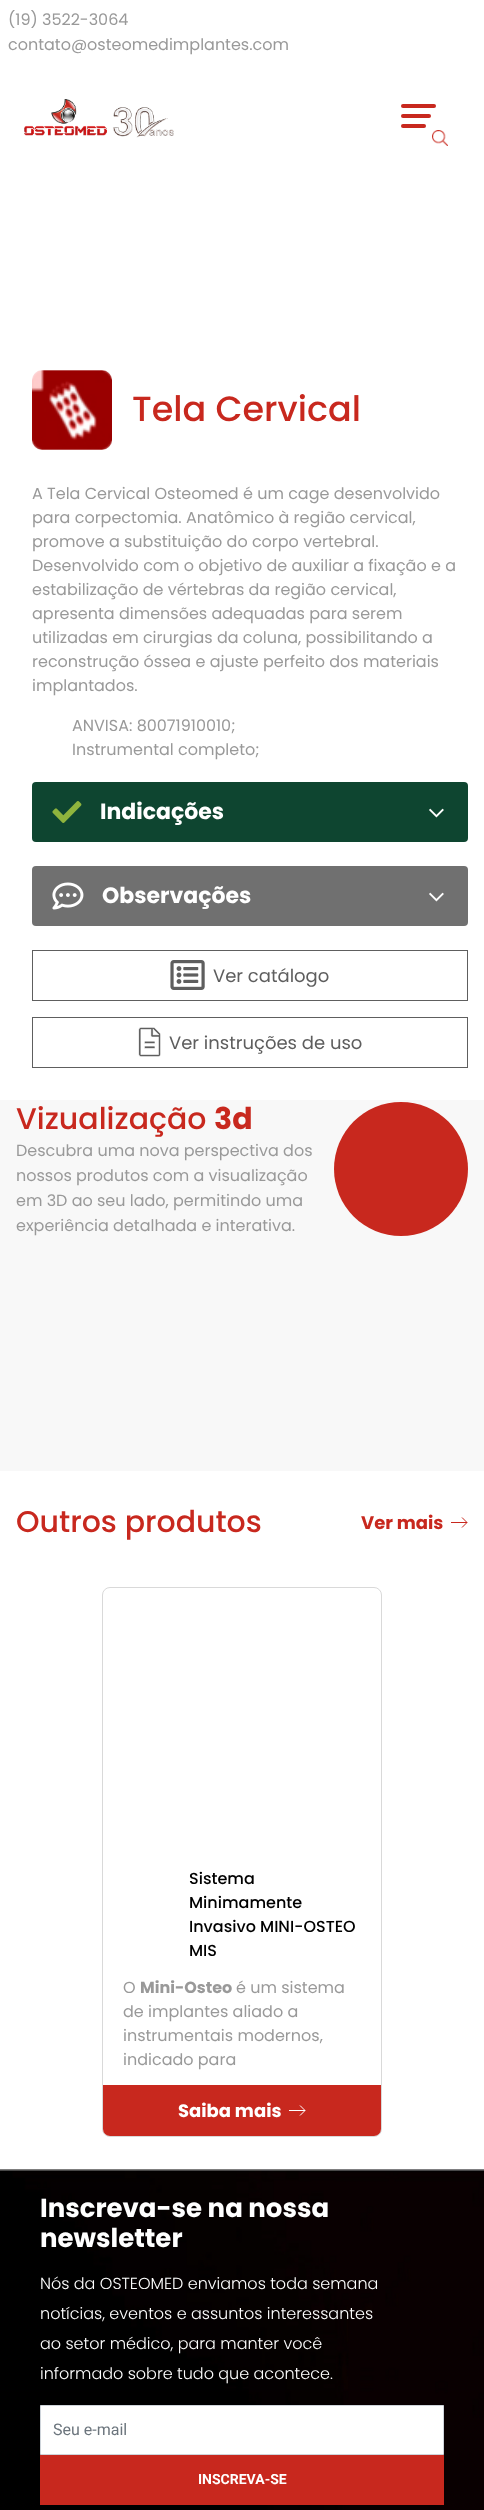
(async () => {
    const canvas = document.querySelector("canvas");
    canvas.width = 484;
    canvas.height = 2510;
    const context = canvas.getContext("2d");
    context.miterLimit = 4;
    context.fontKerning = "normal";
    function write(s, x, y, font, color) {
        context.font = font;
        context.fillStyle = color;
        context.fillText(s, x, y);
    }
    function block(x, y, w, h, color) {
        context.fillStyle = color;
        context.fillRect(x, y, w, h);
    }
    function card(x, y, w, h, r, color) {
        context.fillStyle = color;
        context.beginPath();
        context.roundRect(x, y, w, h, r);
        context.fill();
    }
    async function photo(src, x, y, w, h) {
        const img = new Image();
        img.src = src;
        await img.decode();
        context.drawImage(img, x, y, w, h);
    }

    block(0, 0, 484, 2510, "rgb(255, 255, 255)");
    write("(19) 3522-3064", 8, 25, "16px Poppins", "rgb(153, 153, 153)");
    write("contato@osteomedimplantes.com", 8, 50, "16px Poppins", "rgb(153, 153, 153)");
    await photo("media/1.png", 24, 99, 150, 39);
    card(401, 114, 30, 4, 2, "rgb(200, 40, 30)");
    card(401, 104, 35, 4, 2, "rgb(200, 40, 30)");
    card(401, 124, 25, 4, 2, "rgb(200, 40, 30)");
    await photo("media/2.png", 432, 130, 16, 16);
    await photo("media/3.png", 32, 370, 80, 80);
    write("Tela Cervical", 132, 421, "500 35px Poppins", "rgb(200, 40, 30)");
    write("A Tela Cervical Osteomed é um cage desenvolvido", 32, 499, "16px Poppins", "rgb(153, 153, 153)");
    write("para corpectomia. Anatômico à região cervical,", 32, 523, "16px Poppins", "rgb(153, 153, 153)");
    write("promove a substituição do corpo vertebral.", 32, 547, "16px Poppins", "rgb(153, 153, 153)");
    write("Desenvolvido com o objetivo de auxiliar a fixação e a", 32, 571, "16px Poppins", "rgb(153, 153, 153)");
    write("estabilização de vértebras da região cervical,", 32, 595, "16px Poppins", "rgb(153, 153, 153)");
    write("apresenta dimensões adequadas para serem", 32, 619, "16px Poppins", "rgb(153, 153, 153)");
    write("utilizadas em cirurgias da coluna, possibilitando a", 32, 643, "16px Poppins", "rgb(153, 153, 153)");
    write("reconstrução óssea e ajuste perfeito dos materiais", 32, 667, "16px Poppins", "rgb(153, 153, 153)");
    write("implantados.", 32, 691, "16px Poppins", "rgb(153, 153, 153)");
    write("ANVISA: 80071910010;", 72, 731, "16px Poppins", "rgb(153, 153, 153)");
    write("Instrumental completo;", 72, 755, "16px Poppins", "rgb(153, 153, 153)");
    card(32, 782, 436, 60, 4, "rgb(14, 69, 48)");
    await photo("media/4.png", 52, 801, 30, 22);
    write("Indicações", 100, 819, "bold 22px Poppins", "rgb(255, 255, 255)");
    await photo("media/5.png", 429, 808, 15, 10);
    card(32, 866, 436, 60, 4, "rgb(112, 112, 112)");
    await photo("media/6.png", 52, 882, 32, 28);
    write("Observações", 102, 903, "bold 22px Poppins", "rgb(255, 255, 255)");
    await photo("media/7.png", 429, 892, 15, 10);
    context.strokeStyle = "rgb(94, 94, 94)";
    context.strokeRect(32.5, 950.5, 435, 50);
    await photo("media/8.png", 170, 960, 35, 30);
    write("Ver catálogo", 213, 982, "18px Poppins", "rgb(94, 94, 94)");
    context.strokeRect(32.5, 1017.5, 435, 50);
    await photo("media/9.png", 138, 1027, 23, 30);
    write("Ver instruções de uso", 169, 1049, "18px Poppins", "rgb(94, 94, 94)");
    block(0, 1100, 484, 371, "rgb(248, 248, 248)");
    write("Vizualização", 16, 1129, "500 30px Poppins", "rgb(200, 40, 30)");
    write("3d", 214, 1129, "bold 30px Poppins", "rgb(200, 40, 30)");
    write("Descubra uma nova perspectiva dos", 16, 1156, "16px Poppins", "rgb(153, 153, 153)");
    write("nossos produtos com a visualização", 16, 1181, "16px Poppins", "rgb(153, 153, 153)");
    write("em 3D ao seu lado, permitindo uma", 16, 1206, "16px Poppins", "rgb(153, 153, 153)");
    write("experiência detalhada e interativa.", 16, 1231, "16px Poppins", "rgb(153, 153, 153)");
    context.fillStyle = "rgb(200, 40, 30)";
    context.beginPath();
    context.arc(401, 1169, 67, 0, Math.PI * 2);
    context.fill();
    write("Outros produtos", 16, 1532, "500 30px Poppins", "rgb(200, 40, 30)");
    write("Ver mais", 361, 1529, "bold 18px Poppins", "rgb(200, 40, 30)");
    block(451, 1522, 16, 1, "rgb(200, 40, 30)");
    context.beginPath();
    context.moveTo(462, 1517.5);
    context.lineTo(467, 1522.5);
    context.lineTo(462, 1527.5);
    context.strokeStyle = "rgb(200, 40, 30)";
    context.stroke();
    context.beginPath();
    context.roundRect(102.5, 1587.5, 279, 549, 7.5);
    context.strokeStyle = "rgb(217, 217, 217)";
    context.stroke();
    write("Sistema", 189, 1884, "500 16px Poppins", "rgb(0, 0, 0)");
    write("Minimamente", 189, 1908, "500 16px Poppins", "rgb(0, 0, 0)");
    write("Invasivo MINI-OSTEO", 189, 1932, "500 16px Poppins", "rgb(0, 0, 0)");
    write("MIS", 189, 1956, "500 16px Poppins", "rgb(0, 0, 0)");
    write("O", 123, 1993, "16px Poppins", "rgb(153, 153, 153)");
    write("Mini-Osteo", 140, 1993, "bold 16px Poppins", "rgb(153, 153, 153)");
    write("é um sistema", 236, 1993, "16px Poppins", "rgb(153, 153, 153)");
    write("de implantes aliado a", 123, 2017, "16px Poppins", "rgb(153, 153, 153)");
    write("instrumentais modernos,", 123, 2041, "16px Poppins", "rgb(153, 153, 153)");
    write("indicado para", 123, 2065, "16px Poppins", "rgb(153, 153, 153)");
    context.fillStyle = "rgb(200, 40, 30)";
    context.beginPath();
    context.roundRect(103, 2085, 278, 51, [0, 0, 7, 7]);
    context.fill();
    write("Saiba mais", 178, 2117, "bold 18px Poppins", "rgb(255, 255, 255)");
    block(289, 2110, 16, 1, "rgb(255, 255, 255)");
    context.beginPath();
    context.moveTo(300, 2105.5);
    context.lineTo(305, 2110.5);
    context.lineTo(300, 2115.5);
    context.strokeStyle = "rgb(255, 255, 255)";
    context.stroke();
    await photo("media/10.png", 0, 2169, 484, 341);
    write("Inscreva-se na nossa", 40, 2217, "bold 26px Poppins", "rgb(255, 255, 255)");
    write("newsletter", 40, 2247, "bold 26px Poppins", "rgb(255, 255, 255)");
    write("Nós da OSTEOMED enviamos toda semana", 40, 2289, "300 16px Poppins", "rgb(255, 255, 255)");
    write("notícias, eventos e assuntos interessantes", 40, 2319, "300 16px Poppins", "rgb(255, 255, 255)");
    write("ao setor médico, para manter você", 40, 2349, "300 16px Poppins", "rgb(255, 255, 255)");
    write("informado sobre tudo que acontece.", 40, 2379, "300 16px Poppins", "rgb(255, 255, 255)");
    context.beginPath();
    context.rect(40.5, 2405.5, 403, 49);
    context.fill();
    context.strokeStyle = "rgb(206, 212, 218)";
    context.stroke();
    write("Seu e-mail", 53, 2435, "16px Roboto", "rgb(108, 117, 125)");
    block(40, 2455, 404, 50, "rgb(200, 40, 30)");
    write("INSCREVA-SE", 198, 2484, "bold 14px Roboto", "rgb(255, 255, 255)");
})();
